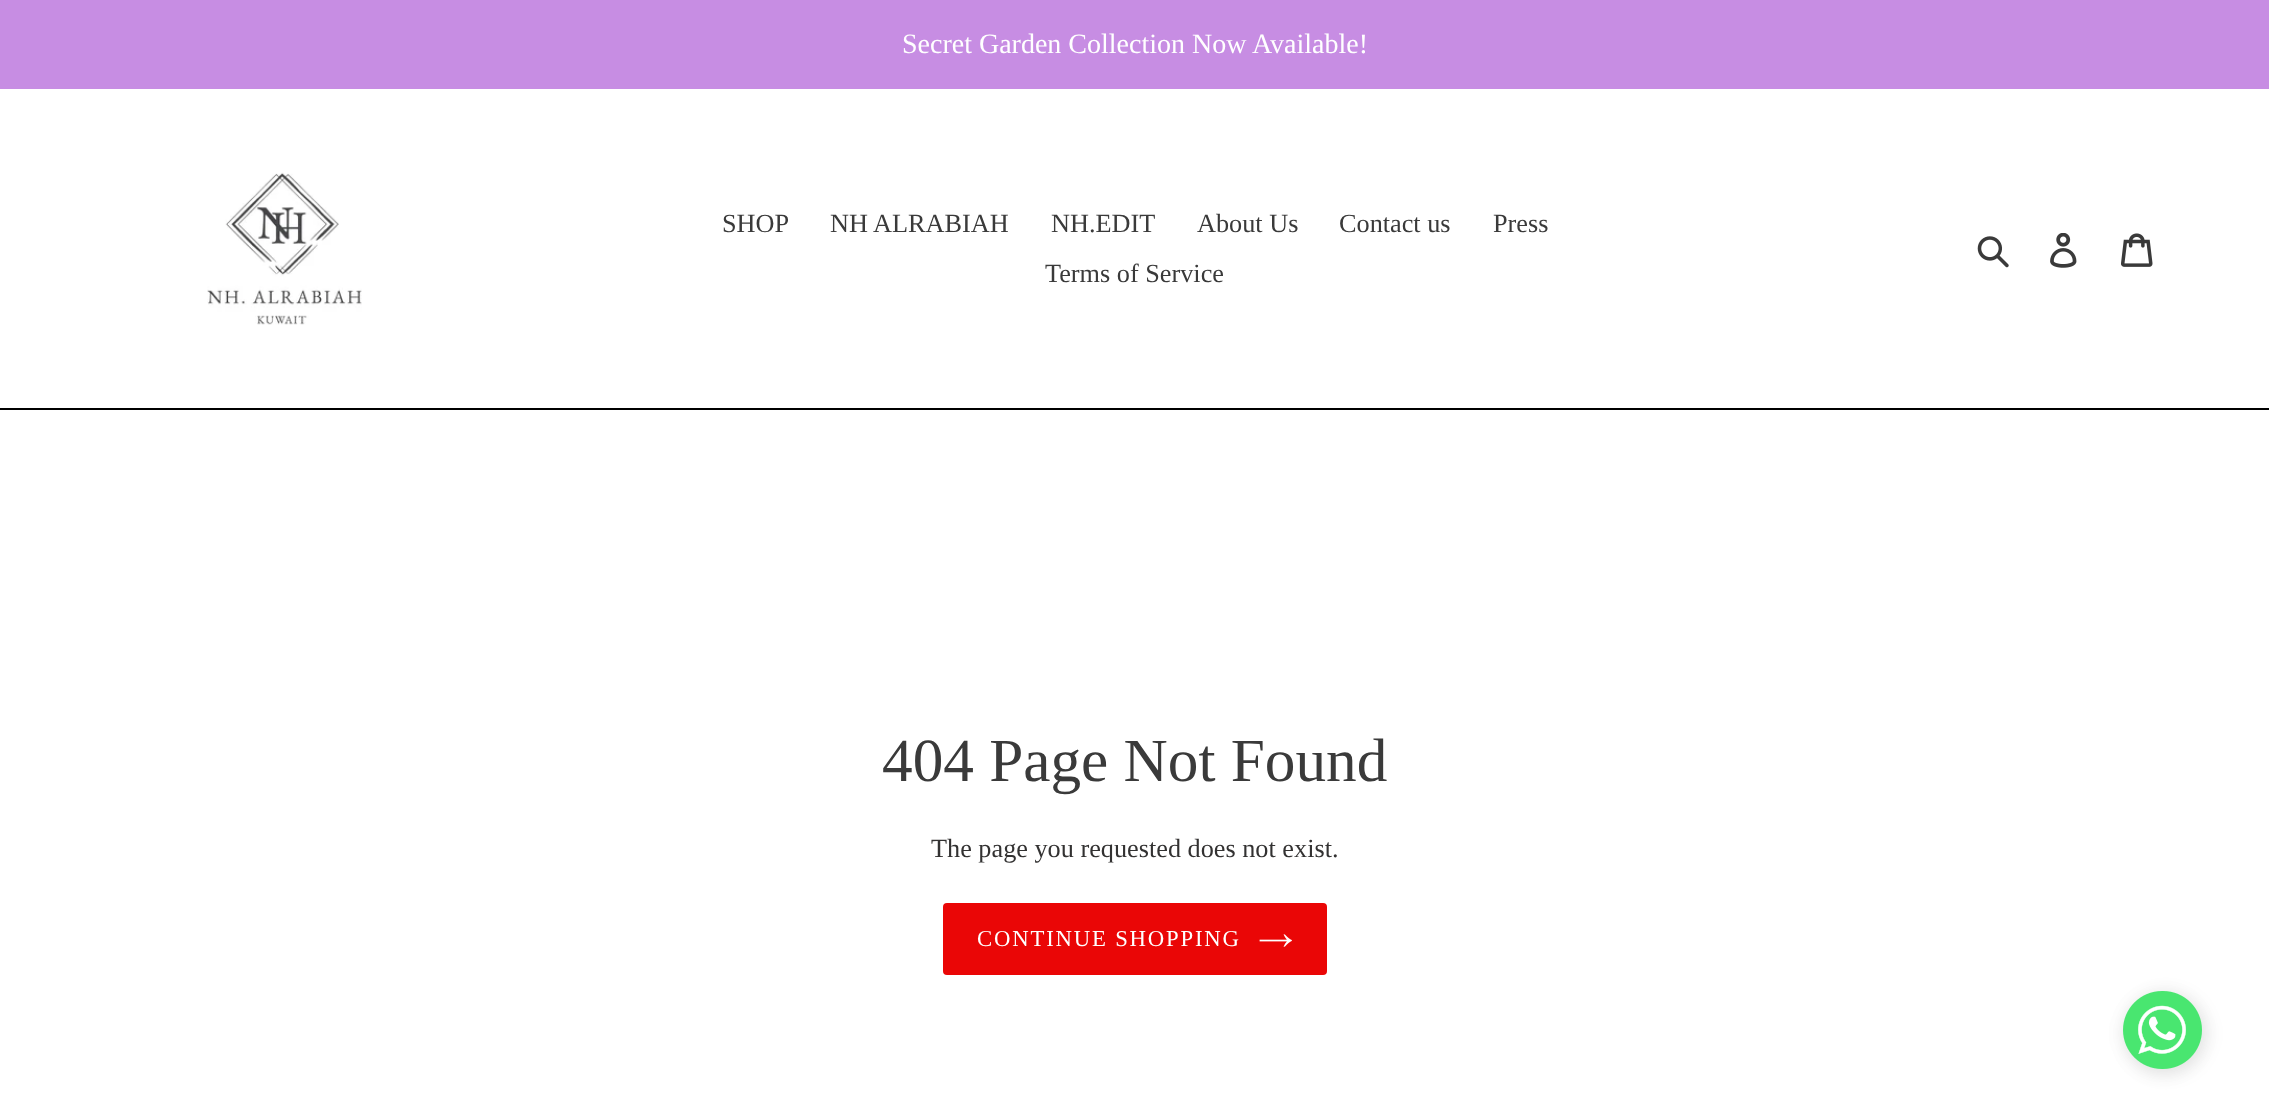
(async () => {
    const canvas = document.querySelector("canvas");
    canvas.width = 2269;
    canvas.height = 1116;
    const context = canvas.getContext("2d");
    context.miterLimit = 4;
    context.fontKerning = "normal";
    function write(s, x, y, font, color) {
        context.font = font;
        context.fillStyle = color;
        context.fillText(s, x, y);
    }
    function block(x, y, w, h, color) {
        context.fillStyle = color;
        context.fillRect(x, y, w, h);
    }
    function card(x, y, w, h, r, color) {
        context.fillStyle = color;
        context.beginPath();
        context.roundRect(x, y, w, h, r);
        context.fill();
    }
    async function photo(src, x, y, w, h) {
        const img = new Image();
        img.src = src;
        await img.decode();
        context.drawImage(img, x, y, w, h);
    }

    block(0, 0, 2269, 1116, "rgb(255, 255, 255)");
    block(0, 0, 2269, 89, "rgb(199, 141, 227)");
    write("Secret Garden Collection Now Available!", 902, 53, "28px Liberation Serif", "rgb(255, 255, 255)");
    block(0, 408, 2269, 2, "rgb(0, 0, 0)");
    await photo("media/1.png", 207, 172, 155, 153);
    write("SHOP", 722, 232, "26.25px Liberation Serif", "rgb(58, 58, 58)");
    write("NH ALRABIAH", 830, 232, "26.25px Liberation Serif", "rgb(58, 58, 58)");
    write("NH.EDIT", 1051, 232, "26.25px Liberation Serif", "rgb(58, 58, 58)");
    write("About Us", 1197, 232, "26.25px Liberation Serif", "rgb(58, 58, 58)");
    write("Contact us", 1339, 232, "26.25px Liberation Serif", "rgb(58, 58, 58)");
    write("Press", 1493, 232, "26.25px Liberation Serif", "rgb(58, 58, 58)");
    write("Terms of Service", 1045, 282, "26.25px Liberation Serif", "rgb(58, 58, 58)");
    await photo("media/2.png", 1977, 236, 32, 32);
    await photo("media/3.png", 2050, 233, 27, 35);
    await photo("media/4.png", 2121, 233, 32, 34);
    write("404 Page Not Found", 882, 781, "61.25px Liberation Serif", "rgb(58, 58, 58)");
    write("The page you requested does not exist.", 931, 857, "26.25px Liberation Serif", "rgb(51, 50, 50)");
    card(943, 903, 384, 72, 4, "rgb(234, 6, 6)");
    context.letterSpacing = "1.8px";
    write("CONTINUE SHOPPING", 977, 946, "22.75px Liberation Serif", "rgb(255, 255, 255)");
    await photo("media/5.png", 1259, 934, 33, 13);
    context.fillStyle = "rgba(0, 0, 0, 0.05)";
    context.filter = "blur(9px)";
    context.beginPath();
    context.roundRect(2123, 994, 79, 79, 39.5);
    context.fill();
    context.filter = "none";
    context.fillStyle = "rgba(0, 0, 0, 0.07)";
    context.filter = "blur(8px)";
    context.beginPath();
    context.roundRect(2123, 991, 86, 85, 42.5);
    context.fill();
    context.filter = "none";
    await photo("media/6.png", 2123, 991, 79, 78);
})();
